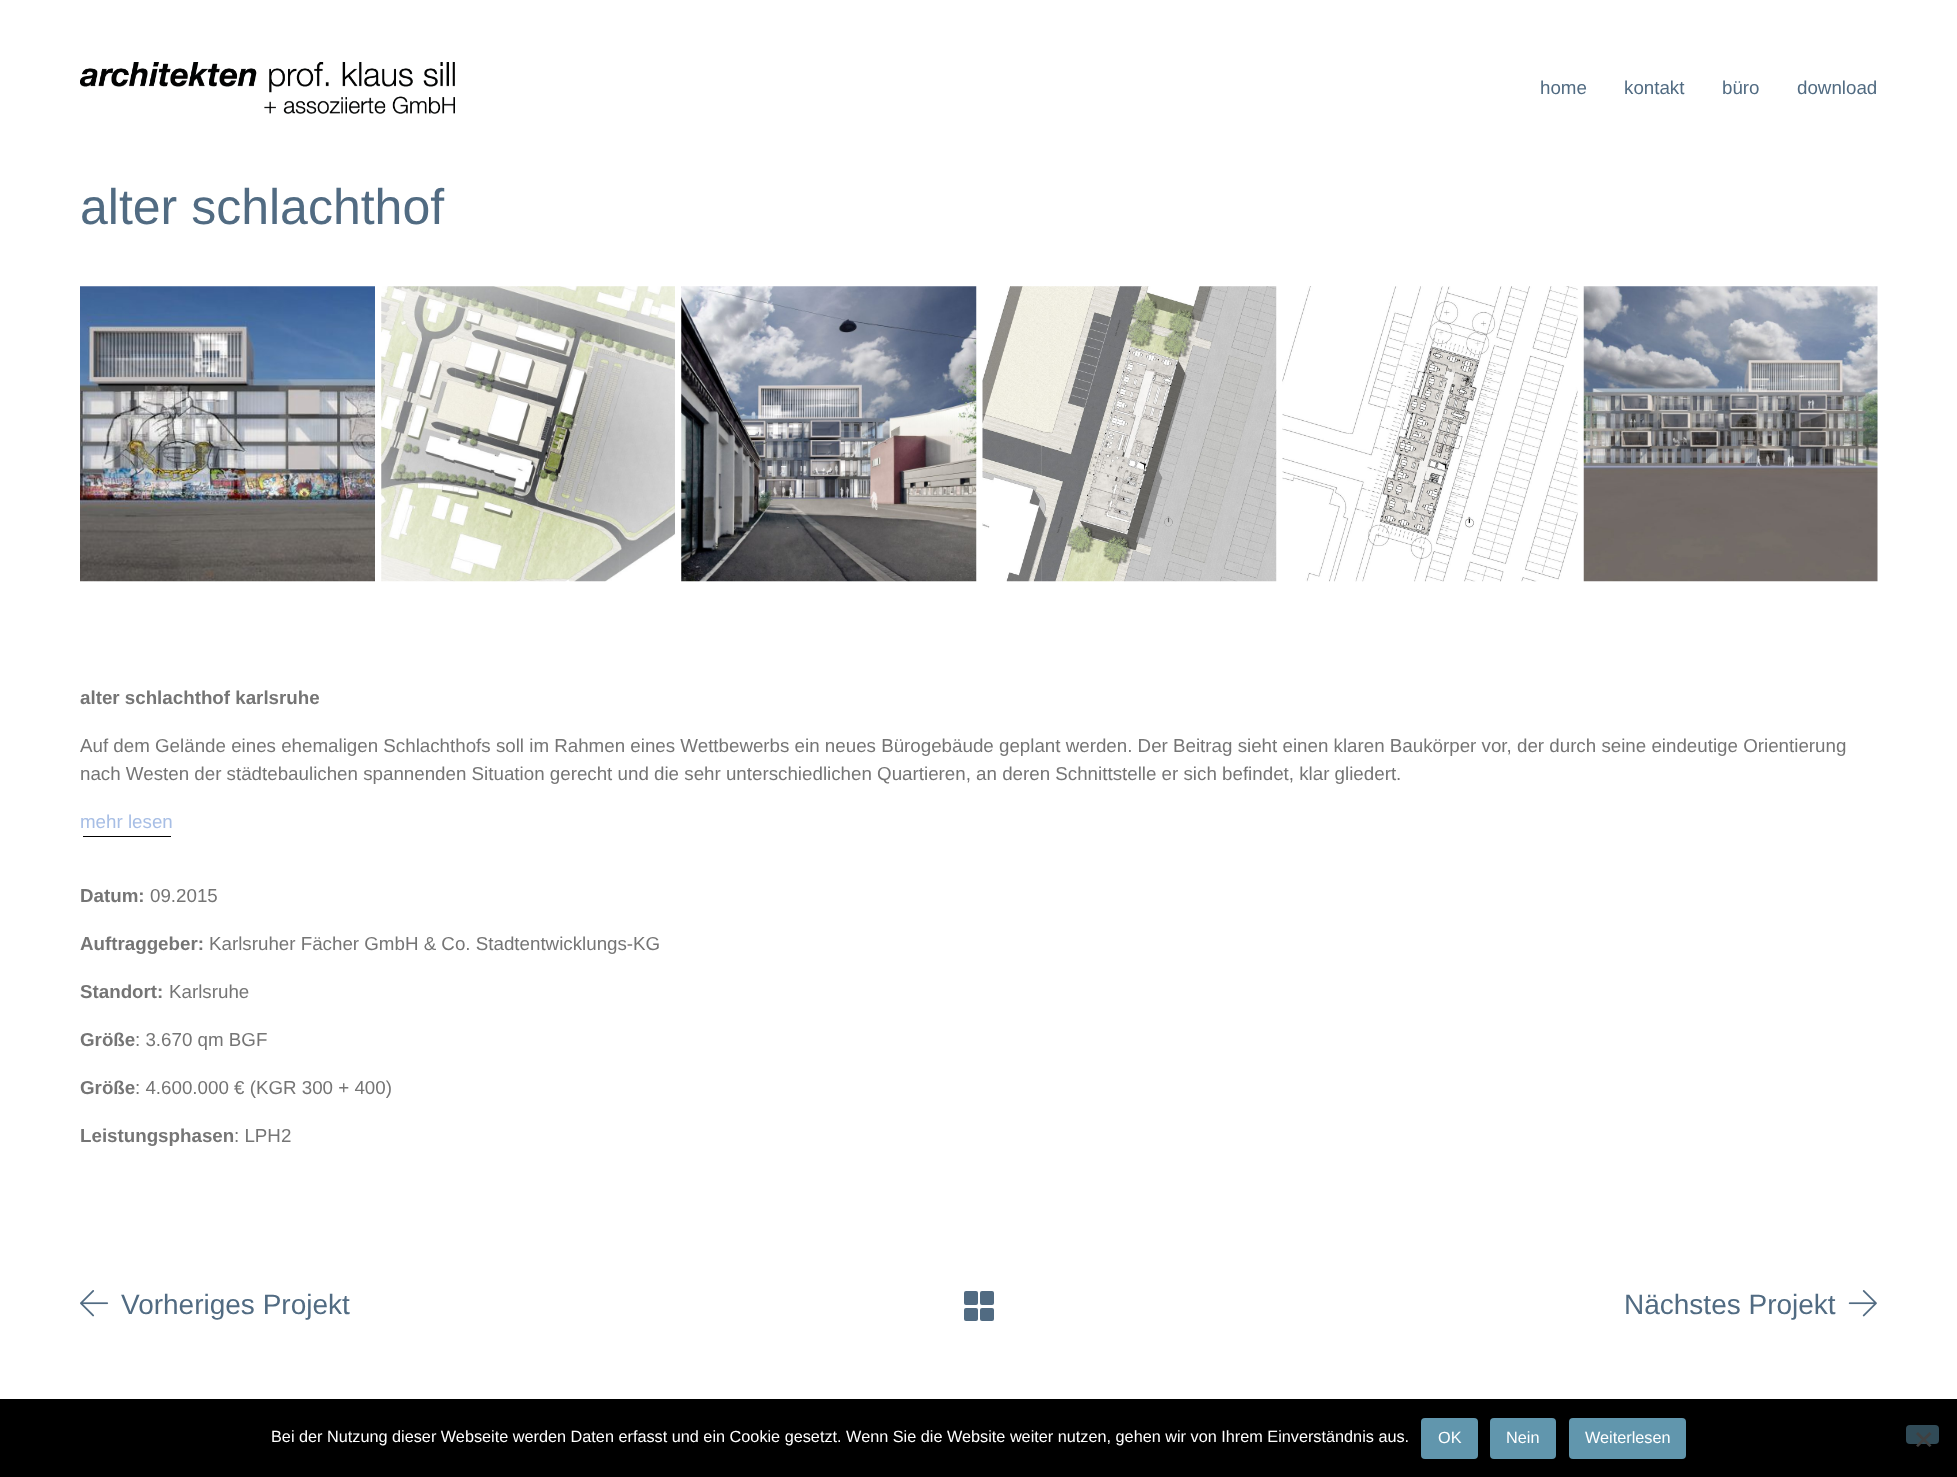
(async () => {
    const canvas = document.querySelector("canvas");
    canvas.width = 1957;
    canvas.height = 1477;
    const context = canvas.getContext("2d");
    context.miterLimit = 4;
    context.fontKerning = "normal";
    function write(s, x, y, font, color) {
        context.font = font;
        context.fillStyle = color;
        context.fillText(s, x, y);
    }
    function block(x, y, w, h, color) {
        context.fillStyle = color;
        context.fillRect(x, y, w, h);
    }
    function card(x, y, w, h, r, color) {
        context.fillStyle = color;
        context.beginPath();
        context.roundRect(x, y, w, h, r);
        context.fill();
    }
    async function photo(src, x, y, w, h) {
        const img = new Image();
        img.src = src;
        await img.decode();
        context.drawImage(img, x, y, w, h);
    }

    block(0, 0, 1957, 1477, "rgb(255, 255, 255)");
    await photo("media/1.png", 80, 62, 375, 52);
    write("home", 1540, 94, "18.75px Liberation Sans", "rgb(81, 107, 130)");
    write("kontakt", 1624, 94, "18.75px Liberation Sans", "rgb(81, 107, 130)");
    write("büro", 1722, 94, "18.75px Liberation Sans", "rgb(81, 107, 130)");
    write("download", 1797, 94, "18.75px Liberation Sans", "rgb(81, 107, 130)");
    write("alter schlachthof", 80, 224, "50px Liberation Sans", "rgb(81, 107, 130)");
    await photo("media/2.png", 80, 286, 295, 296);
    await photo("media/3.png", 381, 286, 294, 296);
    await photo("media/4.png", 681, 286, 296, 296);
    await photo("media/5.png", 982, 286, 295, 296);
    await photo("media/6.png", 1282, 286, 296, 296);
    await photo("media/7.png", 1583, 286, 295, 296);
    write("alter schlachthof karlsruhe", 80, 704, "bold 18.75px Liberation Sans", "rgb(117, 117, 117)");
    write("Auf dem Gelände eines ehemaligen Schlachthofs soll im Rahmen eines Wettbewerbs ein neues Bürogebäude geplant werden. Der Beitrag sieht einen klaren Baukörper vor, der durch seine eindeutige Orientierung", 80, 752, "18.75px Liberation Sans", "rgb(117, 117, 117)");
    write("nach Westen der städtebaulichen spannenden Situation gerecht und die sehr unterschiedlichen Quartieren, an deren Schnittstelle er sich befindet, klar gliedert.", 80, 780, "18.75px Liberation Sans", "rgb(117, 117, 117)");
    block(83, 836, 88, 1, "rgb(0, 0, 0)");
    write("mehr lesen", 80, 828, "18.75px Liberation Sans", "rgb(167, 190, 229)");
    write("Datum:", 80, 902, "bold 18.75px Liberation Sans", "rgb(117, 117, 117)");
    write("09.2015", 150, 902, "18.75px Liberation Sans", "rgb(117, 117, 117)");
    write("Auftraggeber:", 80, 950, "bold 18.75px Liberation Sans", "rgb(117, 117, 117)");
    write("Karlsruher Fächer GmbH & Co. Stadtentwicklungs-KG", 209, 950, "18.75px Liberation Sans", "rgb(117, 117, 117)");
    write("Standort:", 80, 998, "bold 18.75px Liberation Sans", "rgb(117, 117, 117)");
    write("Karlsruhe", 169, 998, "18.75px Liberation Sans", "rgb(117, 117, 117)");
    write("Größe", 80, 1046, "bold 18.75px Liberation Sans", "rgb(117, 117, 117)");
    write(": 3.670 qm BGF", 135, 1046, "18.75px Liberation Sans", "rgb(117, 117, 117)");
    write("Größe", 80, 1094, "bold 18.75px Liberation Sans", "rgb(117, 117, 117)");
    write(": 4.600.000 € (KGR 300 + 400)", 135, 1094, "18.75px Liberation Sans", "rgb(117, 117, 117)");
    write("Leistungsphasen", 80, 1142, "bold 18.75px Liberation Sans", "rgb(117, 117, 117)");
    write(": LPH2", 234, 1142, "18.75px Liberation Sans", "rgb(117, 117, 117)");
    await photo("media/8.png", 80, 1290, 29, 27);
    write("Vorheriges Projekt", 121, 1314, "28px Liberation Sans", "rgb(81, 107, 130)");
    card(964, 1291, 14, 14, 2, "rgb(81, 107, 130)");
    card(980, 1291, 14, 14, 2, "rgb(81, 107, 130)");
    card(964, 1308, 14, 13, 2, "rgb(81, 107, 130)");
    card(980, 1308, 14, 13, 2, "rgb(81, 107, 130)");
    write("Nächstes Projekt", 1624, 1314, "28px Liberation Sans", "rgb(81, 107, 130)");
    await photo("media/9.png", 1848, 1290, 29, 27);
    block(0, 1399, 1957, 78, "rgb(0, 0, 0)");
    write("Bei der Nutzung dieser Webseite werden Daten erfasst und ein Cookie gesetzt. Wenn Sie die Website weiter nutzen, gehen wir von Ihrem Einverständnis aus.", 271, 1442, "16.25px Liberation Sans", "rgb(255, 255, 255)");
    card(1421, 1418, 57, 41, 4, "rgb(97, 150, 173)");
    write("OK", 1438, 1443, "16.25px Liberation Sans", "rgb(255, 255, 255)");
    card(1490, 1418, 66, 41, 4, "rgb(97, 150, 173)");
    write("Nein", 1506, 1443, "16.25px Liberation Sans", "rgb(255, 255, 255)");
    card(1569, 1418, 117, 41, 4, "rgb(97, 150, 173)");
    write("Weiterlesen", 1585, 1443, "16.25px Liberation Sans", "rgb(255, 255, 255)");
    card(1906, 1425, 33, 19, 4, "rgb(49, 75, 87)");
    context.fillStyle = "rgb(64, 64, 64)";
    context.beginPath();
    context.moveTo(1929.5, 1432);
    context.lineTo(1931.5, 1434);
    context.lineTo(1918, 1447);
    context.lineTo(1916, 1445.5);
    context.closePath();
    context.fill();
    context.beginPath();
    context.moveTo(1916, 1434);
    context.lineTo(1918, 1432);
    context.lineTo(1931.5, 1445.5);
    context.lineTo(1929.5, 1447);
    context.closePath();
    context.fill();
})();
